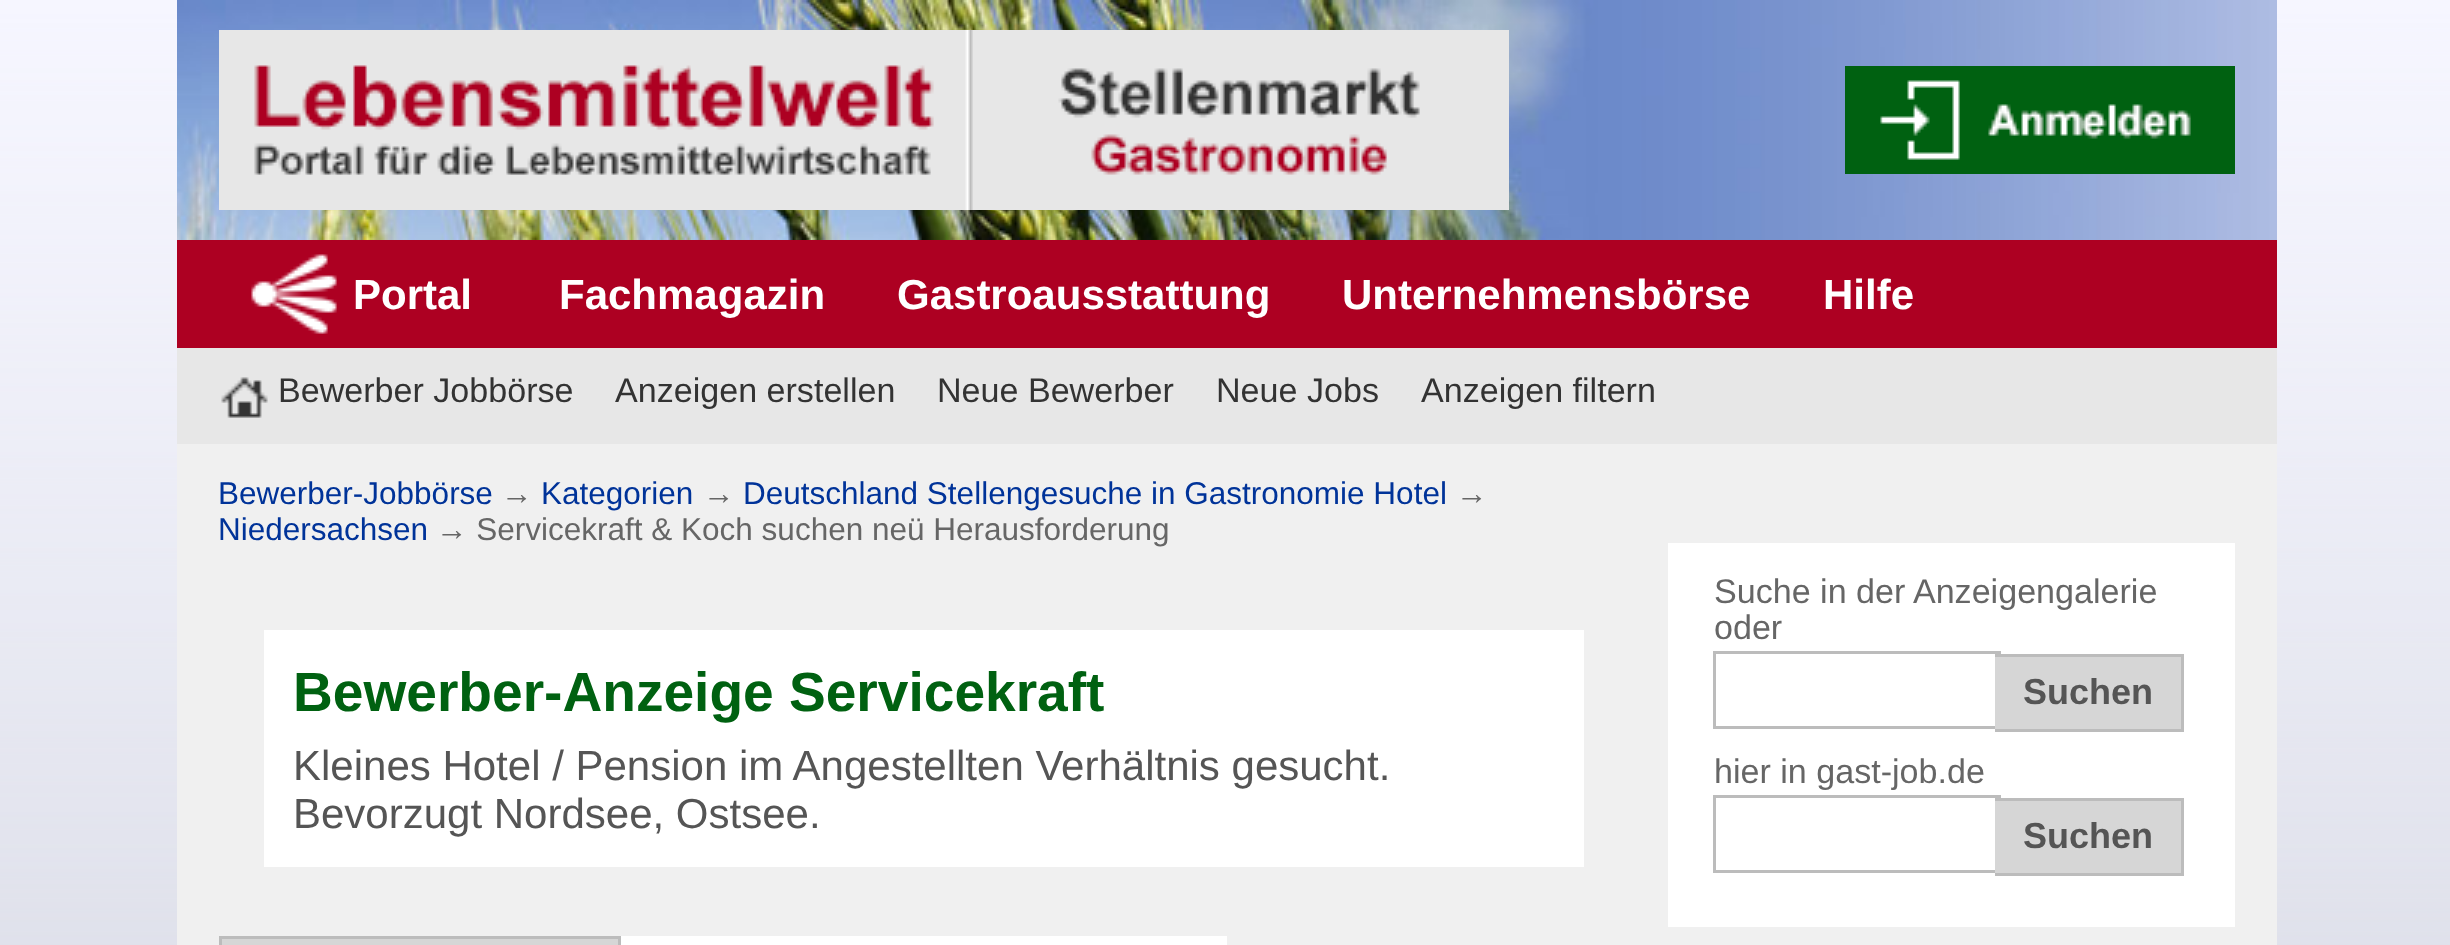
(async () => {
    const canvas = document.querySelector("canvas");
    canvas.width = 2450;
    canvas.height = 945;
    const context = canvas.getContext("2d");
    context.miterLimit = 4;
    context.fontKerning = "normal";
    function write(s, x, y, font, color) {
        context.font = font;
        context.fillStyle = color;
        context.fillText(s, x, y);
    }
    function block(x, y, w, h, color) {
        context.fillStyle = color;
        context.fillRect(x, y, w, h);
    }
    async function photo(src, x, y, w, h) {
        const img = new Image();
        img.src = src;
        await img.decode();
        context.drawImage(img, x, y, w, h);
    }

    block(0, 0, 2450, 945, "rgb(255, 255, 255)");
    await photo("media/1.png", 0, 0, 2450, 945);
    await photo("media/2.png", 177, 0, 2100, 240);
    await photo("media/3.png", 219, 30, 1290, 180);
    block(177, 240, 2100, 108, "rgb(173, 0, 34)");
    block(1845, 66, 390, 108, "rgb(0, 97, 17)");
    await photo("media/4.png", 1880, 80, 311, 80);
    await photo("media/5.png", 251, 254, 86, 80);
    write("Portal", 353, 309, "bold 42px Liberation Sans", "rgb(255, 255, 255)");
    write("Fachmagazin", 559, 309, "bold 42px Liberation Sans", "rgb(255, 255, 255)");
    write("Gastroausstattung", 897, 309, "bold 42px Liberation Sans", "rgb(255, 255, 255)");
    write("Unternehmensbörse", 1342, 309, "bold 42px Liberation Sans", "rgb(255, 255, 255)");
    write("Hilfe", 1823, 309, "bold 42px Liberation Sans", "rgb(255, 255, 255)");
    block(177, 348, 2100, 96, "rgb(231, 231, 231)");
    await photo("media/6.png", 221, 377, 47, 41);
    write("Bewerber Jobbörse", 278, 402, "34.1px Liberation Sans", "rgb(51, 51, 51)");
    write("Anzeigen erstellen", 615, 402, "34.1px Liberation Sans", "rgb(51, 51, 51)");
    write("Neue Bewerber", 937, 402, "34.1px Liberation Sans", "rgb(51, 51, 51)");
    write("Neue Jobs", 1216, 402, "34.1px Liberation Sans", "rgb(51, 51, 51)");
    write("Anzeigen filtern", 1421, 402, "34.1px Liberation Sans", "rgb(51, 51, 51)");
    block(177, 444, 2100, 501, "rgb(240, 240, 240)");
    write("Bewerber-Jobbörse", 218, 504, "31.5px Liberation Sans", "rgb(0, 51, 153)");
    write("→", 501, 504, "31.5px Liberation Sans", "rgb(102, 102, 102)");
    write("Kategorien", 541, 504, "31.5px Liberation Sans", "rgb(0, 51, 153)");
    write("→", 703, 504, "31.5px Liberation Sans", "rgb(102, 102, 102)");
    write("Deutschland Stellengesuche in Gastronomie Hotel", 743, 504, "31.5px Liberation Sans", "rgb(0, 51, 153)");
    write("→", 1456, 504, "31.5px Liberation Sans", "rgb(102, 102, 102)");
    write("Niedersachsen", 218, 540, "31.5px Liberation Sans", "rgb(0, 51, 153)");
    write("→ Servicekraft & Koch suchen neü Herausforderung", 436, 540, "31.5px Liberation Sans", "rgb(102, 102, 102)");
    block(264, 630, 1320, 237, "rgb(255, 255, 255)");
    write("Bewerber-Anzeige Servicekraft", 293, 711, "bold 55.1px Liberation Sans", "rgb(0, 97, 17)");
    write("Kleines Hotel / Pension im Angestellten Verhältnis gesucht.", 293, 780, "42px Liberation Sans", "rgb(85, 85, 85)");
    write("Bevorzugt Nordsee, Ostsee.", 293, 828, "42px Liberation Sans", "rgb(85, 85, 85)");
    block(1668, 543, 567, 384, "rgb(255, 255, 255)");
    write("Suche in der Anzeigengalerie", 1714, 603, "34.1px Liberation Sans", "rgb(102, 102, 102)");
    write("oder", 1714, 639, "34.1px Liberation Sans", "rgb(102, 102, 102)");
    block(1713, 651, 288, 3, "rgb(188, 188, 188)");
    block(1713, 726, 288, 3, "rgb(188, 188, 188)");
    block(1713, 651, 3, 78, "rgb(188, 188, 188)");
    block(1995, 657, 186, 72, "rgb(214, 214, 214)");
    block(1995, 654, 189, 3, "rgb(188, 188, 188)");
    block(2181, 654, 3, 78, "rgb(188, 188, 188)");
    block(1995, 729, 189, 3, "rgb(188, 188, 188)");
    write("Suchen", 2023, 704, "bold 36px Liberation Sans", "rgb(85, 85, 85)");
    write("hier in gast-job.de", 1714, 783, "34.1px Liberation Sans", "rgb(102, 102, 102)");
    block(1713, 795, 288, 3, "rgb(188, 188, 188)");
    block(1713, 870, 288, 3, "rgb(188, 188, 188)");
    block(1713, 795, 3, 78, "rgb(188, 188, 188)");
    block(1995, 801, 186, 72, "rgb(214, 214, 214)");
    block(1995, 798, 189, 3, "rgb(188, 188, 188)");
    block(2181, 798, 3, 78, "rgb(188, 188, 188)");
    block(1995, 873, 189, 3, "rgb(188, 188, 188)");
    write("Suchen", 2023, 848, "bold 36px Liberation Sans", "rgb(85, 85, 85)");
    block(621, 936, 606, 9, "rgb(255, 255, 255)");
    context.fillStyle = "rgb(214, 214, 214)";
    context.beginPath();
    context.rect(220.5, 937.5, 399, 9);
    context.fill();
    context.strokeStyle = "rgb(188, 188, 188)";
    context.lineWidth = 3;
    context.stroke();
})();
